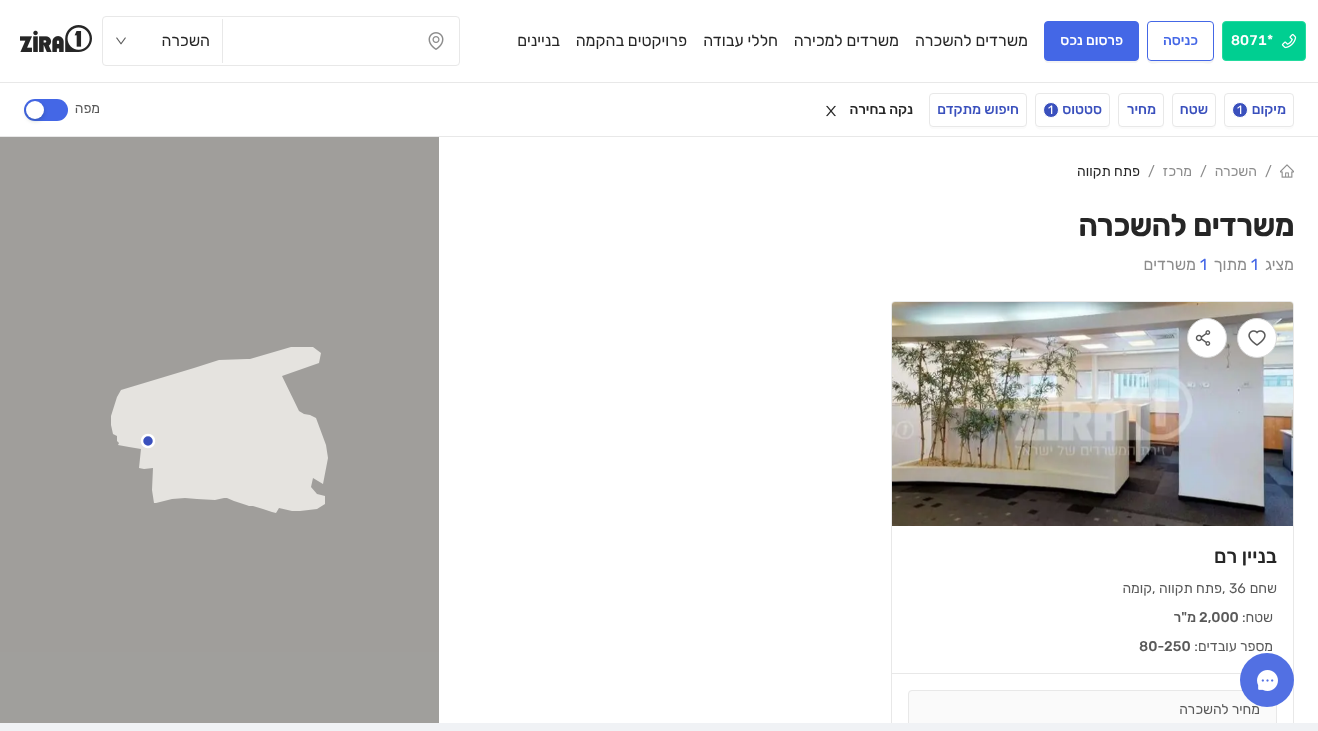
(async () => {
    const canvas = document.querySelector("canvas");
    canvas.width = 1318;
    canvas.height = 731;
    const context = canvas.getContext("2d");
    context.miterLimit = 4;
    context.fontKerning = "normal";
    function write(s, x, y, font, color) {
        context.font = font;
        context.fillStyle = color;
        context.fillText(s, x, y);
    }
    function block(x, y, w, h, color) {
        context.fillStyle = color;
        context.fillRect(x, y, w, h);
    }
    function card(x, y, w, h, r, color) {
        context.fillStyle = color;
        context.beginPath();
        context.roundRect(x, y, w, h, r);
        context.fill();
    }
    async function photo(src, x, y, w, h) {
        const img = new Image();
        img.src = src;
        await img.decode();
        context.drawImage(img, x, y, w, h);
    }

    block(0, 0, 1318, 731, "rgb(240, 242, 245)");
    block(0, 0, 1318, 82, "rgb(255, 255, 255)");
    block(0, 82, 1318, 1, "rgb(232, 232, 232)");
    context.fillStyle = "rgb(0, 207, 145)";
    context.beginPath();
    context.roundRect(1222.5, 21.5, 83, 39, 3.5);
    context.fill();
    context.strokeStyle = "rgb(35, 219, 158)";
    context.stroke();
    await photo("media/1.png", 1281, 33, 16, 16);
    write("*", 1267, 45, "500 14px Rubik", "rgb(255, 255, 255)");
    write("8071", 1231, 45, "500 14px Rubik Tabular", "rgb(255, 255, 255)");
    context.fillStyle = "rgb(244, 244, 244)";
    context.beginPath();
    context.moveTo(1147, 57);
    context.bezierCurveTo(1147, 66, 1153, 63, 1161, 63);
    context.lineTo(1200, 63);
    context.bezierCurveTo(1208, 63, 1214, 66, 1214, 57);
    context.bezierCurveTo(1214, 59, 1212, 61, 1210, 61);
    context.lineTo(1151, 61);
    context.bezierCurveTo(1149, 61, 1147, 59, 1147, 57);
    context.closePath();
    context.fill();
    context.beginPath();
    context.roundRect(1147.5, 21.5, 66, 39, 3.5);
    context.strokeStyle = "rgb(68, 103, 230)";
    context.stroke();
    context.direction = "rtl";
    write("כניסה", 1198, 45, "500 14px Rubik", "rgb(68, 103, 230)");
    context.fillStyle = "rgb(244, 244, 244)";
    context.beginPath();
    context.moveTo(1044, 57);
    context.lineTo(1044, 59);
    context.bezierCurveTo(1044, 61, 1046, 63, 1048, 63);
    context.lineTo(1135, 63);
    context.bezierCurveTo(1137, 63, 1139, 61, 1139, 59);
    context.lineTo(1139, 57);
    context.bezierCurveTo(1139, 59, 1137, 61, 1135, 61);
    context.lineTo(1048, 61);
    context.bezierCurveTo(1046, 61, 1044, 59, 1044, 57);
    context.closePath();
    context.fill();
    context.fillStyle = "rgb(68, 103, 230)";
    context.beginPath();
    context.roundRect(1044.5, 21.5, 94, 39, 3.5);
    context.fill();
    context.stroke();
    write("פרסום נכס", 1123, 45, "500 14px Rubik", "rgb(255, 255, 255)");
    write("משרדים להשכרה", 1028, 46, "16px Rubik", "rgb(38, 38, 38)");
    write("משרדים למכירה", 899, 46, "16px Rubik", "rgb(38, 38, 38)");
    write("חללי עבודה", 778, 46, "16px Rubik", "rgb(38, 38, 38)");
    write("פרויקטים בהקמה", 687, 46, "16px Rubik", "rgb(38, 38, 38)");
    write("בניינים", 560, 46, "16px Rubik", "rgb(38, 38, 38)");
    context.beginPath();
    context.roundRect(102.5, 16.5, 357, 49, 3.5);
    context.strokeStyle = "rgb(232, 232, 232)";
    context.stroke();
    await photo("media/2.png", 428, 32, 16, 18);
    block(222, 19, 1, 44, "rgb(232, 232, 232)");
    write("השכרה", 210, 46, "16px Rubik", "rgb(38, 38, 38)");
    await photo("media/3.png", 116, 37, 10, 8);
    await photo("media/4.png", 20, 25, 72, 27);
    block(0, 83, 1318, 53, "rgb(255, 255, 255)");
    block(0, 136, 1318, 1, "rgb(232, 232, 232)");
    context.fillStyle = "rgb(251, 251, 251)";
    context.beginPath();
    context.moveTo(1224, 123);
    context.bezierCurveTo(1224, 132, 1231, 129, 1238, 129);
    context.lineTo(1280, 129);
    context.bezierCurveTo(1287, 129, 1294, 132, 1294, 123);
    context.bezierCurveTo(1294, 125, 1292, 127, 1290, 127);
    context.lineTo(1228, 127);
    context.bezierCurveTo(1226, 127, 1224, 125, 1224, 123);
    context.closePath();
    context.fill();
    context.beginPath();
    context.roundRect(1224.5, 93.5, 69, 33, 3.5);
    context.stroke();
    write("מיקום", 1286, 114, "500 14px Rubik", "rgb(58, 80, 189)");
    context.beginPath();
    context.arc(1240, 110, 7.5, 0, Math.PI * 2);
    context.fill();
    context.strokeStyle = "rgb(255, 255, 255)";
    context.stroke();
    context.direction = "ltr";
    write("1", 1237, 114, "12px Rubik", "rgb(255, 255, 255)");
    context.fillStyle = "rgb(251, 251, 251)";
    context.beginPath();
    context.moveTo(1172, 123);
    context.bezierCurveTo(1172, 130, 1176, 129, 1182, 129);
    context.lineTo(1206, 129);
    context.bezierCurveTo(1212, 129, 1216, 130, 1216, 123);
    context.bezierCurveTo(1216, 125, 1214, 127, 1212, 127);
    context.lineTo(1176, 127);
    context.bezierCurveTo(1174, 127, 1172, 125, 1172, 123);
    context.closePath();
    context.fill();
    context.beginPath();
    context.roundRect(1172.5, 93.5, 43, 33, 3.5);
    context.strokeStyle = "rgb(232, 232, 232)";
    context.stroke();
    context.direction = "rtl";
    write("שטח", 1208, 114, "500 14px Rubik", "rgb(58, 80, 189)");
    context.fillStyle = "rgb(251, 251, 251)";
    context.beginPath();
    context.moveTo(1118, 123);
    context.bezierCurveTo(1118, 130, 1122, 129, 1128, 129);
    context.lineTo(1154, 129);
    context.bezierCurveTo(1160, 129, 1164, 130, 1164, 123);
    context.bezierCurveTo(1164, 125, 1162, 127, 1160, 127);
    context.lineTo(1122, 127);
    context.bezierCurveTo(1120, 127, 1118, 125, 1118, 123);
    context.closePath();
    context.fill();
    context.beginPath();
    context.roundRect(1118.5, 93.5, 45, 33, 3.5);
    context.stroke();
    write("מחיר", 1156, 114, "500 14px Rubik", "rgb(58, 80, 189)");
    context.fillStyle = "rgb(251, 251, 251)";
    context.beginPath();
    context.moveTo(1035, 123);
    context.bezierCurveTo(1035, 132, 1042, 129, 1050, 129);
    context.lineTo(1095, 129);
    context.bezierCurveTo(1103, 129, 1110, 132, 1110, 123);
    context.bezierCurveTo(1110, 125, 1108, 127, 1106, 127);
    context.lineTo(1039, 127);
    context.bezierCurveTo(1037, 127, 1035, 125, 1035, 123);
    context.closePath();
    context.fill();
    context.beginPath();
    context.roundRect(1035.5, 93.5, 74, 33, 3.5);
    context.stroke();
    write("סטטוס", 1102, 114, "500 14px Rubik", "rgb(58, 80, 189)");
    context.beginPath();
    context.arc(1051, 110, 7.5, 0, Math.PI * 2);
    context.fill();
    context.strokeStyle = "rgb(255, 255, 255)";
    context.stroke();
    context.direction = "ltr";
    write("1", 1048, 114, "12px Rubik", "rgb(255, 255, 255)");
    context.fillStyle = "rgb(251, 251, 251)";
    context.beginPath();
    context.moveTo(929, 123);
    context.lineTo(929, 125);
    context.bezierCurveTo(929, 127, 931, 129, 933, 129);
    context.lineTo(1023, 129);
    context.bezierCurveTo(1025, 129, 1027, 127, 1027, 125);
    context.lineTo(1027, 123);
    context.bezierCurveTo(1027, 125, 1025, 127, 1023, 127);
    context.lineTo(933, 127);
    context.bezierCurveTo(931, 127, 929, 125, 929, 123);
    context.closePath();
    context.fill();
    context.beginPath();
    context.roundRect(929.5, 93.5, 97, 33, 3.5);
    context.strokeStyle = "rgb(232, 232, 232)";
    context.stroke();
    context.direction = "rtl";
    write("חיפוש מתקדם", 1019, 114, "500 14px Rubik", "rgb(58, 80, 189)");
    write("נקה בחירה", 913, 114, "500 14px Rubik", "rgb(38, 38, 38)");
    await photo("media/5.png", 826, 105, 10, 12);
    write("מפה", 100, 113, "14px Rubik", "rgb(89, 89, 89)");
    card(24, 99, 44, 22, 11, "rgb(68, 103, 230)");
    context.fillStyle = "rgba(0, 35, 11, 0.2)";
    context.filter = "blur(2px)";
    context.beginPath();
    context.roundRect(26, 103, 18, 18, 9);
    context.fill();
    context.filter = "none";
    context.fillStyle = "rgb(255, 255, 255)";
    context.beginPath();
    context.arc(35, 110, 9, 0, Math.PI * 2);
    context.fill();
    block(439, 137, 879, 586, "rgb(255, 255, 255)");
    await photo("media/6.png", 1280, 164, 14, 14);
    context.direction = "ltr";
    write("/", 1265, 176, "14px Rubik", "rgb(140, 140, 140)");
    context.direction = "rtl";
    write("השכרה", 1257, 176, "14px Rubik", "rgb(140, 140, 140)");
    context.direction = "ltr";
    write("/", 1200, 176, "14px Rubik", "rgb(140, 140, 140)");
    context.direction = "rtl";
    write("מרכז", 1192, 176, "14px Rubik", "rgb(140, 140, 140)");
    context.direction = "ltr";
    write("/", 1148, 176, "14px Rubik", "rgb(140, 140, 140)");
    context.direction = "rtl";
    write("פתח תקווה", 1140, 176, "14px Rubik", "rgb(38, 38, 38)");
    write("משרדים להשכרה", 1294, 236, "bold 30px Rubik", "rgb(38, 38, 38)");
    write("מציג", 1294, 270, "16px Rubik", "rgb(140, 140, 140)");
    context.direction = "ltr";
    write("1", 1251, 270, "16px Rubik", "rgb(68, 103, 230)");
    context.direction = "rtl";
    write("מתוך", 1247, 270, "16px Rubik", "rgb(140, 140, 140)");
    context.direction = "ltr";
    write("1", 1200, 270, "16px Rubik", "rgb(68, 103, 230)");
    context.direction = "rtl";
    write("משרדים", 1196, 270, "16px Rubik", "rgb(140, 140, 140)");
    context.save();
    context.beginPath();
    context.rect(439, 137, 879, 586);
    context.clip();
    context.beginPath();
    context.roundRect(891.5, 301.5, 402, 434, 3.5);
    context.stroke();
    context.restore();
    await photo("media/7.png", 892, 302, 401, 224);
    context.fillStyle = "rgb(255, 255, 255)";
    context.beginPath();
    context.arc(1257, 338, 19.5, 0, Math.PI * 2);
    context.fill();
    context.strokeStyle = "rgb(217, 217, 217)";
    context.stroke();
    await photo("media/8.png", 1248, 330, 18, 16);
    context.beginPath();
    context.arc(1207, 338, 19.5, 0, Math.PI * 2);
    context.fill();
    context.stroke();
    await photo("media/9.png", 1195, 330, 16, 16);
    write("בניין רם", 1277, 563, "500 20px Rubik", "rgb(38, 38, 38)");
    write("שחם", 1277, 593, "14px Rubik", "rgb(89, 89, 89)");
    context.direction = "ltr";
    write(", 36", 1222, 593, "14px Rubik", "rgb(89, 89, 89)");
    context.direction = "rtl";
    write("פתח תקווה", 1222, 593, "14px Rubik", "rgb(89, 89, 89)");
    context.direction = "ltr";
    write(",", 1152, 593, "14px Rubik", "rgb(89, 89, 89)");
    context.direction = "rtl";
    write("קומה", 1152, 593, "14px Rubik", "rgb(89, 89, 89)");
    write("שטח:", 1273, 622, "14px Rubik", "rgb(89, 89, 89)");
    context.direction = "ltr";
    write("2,000", 1199, 622, "500 14px Rubik", "rgb(89, 89, 89)");
    context.direction = "rtl";
    write("מ\"ר", 1196, 622, "500 14px Rubik", "rgb(89, 89, 89)");
    write("מספר עובדים:", 1273, 651, "14px Rubik", "rgb(89, 89, 89)");
    context.direction = "ltr";
    write("80-250", 1139, 651, "500 14px Rubik", "rgb(89, 89, 89)");
    block(892, 673, 349, 1, "rgb(232, 232, 232)");
    context.fillStyle = "rgb(250, 250, 250)";
    context.beginPath();
    context.roundRect(908, 690, 369, 33, [4, 4, 0, 0]);
    context.fill();
    context.save();
    context.beginPath();
    context.rect(439, 137, 879, 586);
    context.clip();
    context.beginPath();
    context.roundRect(908.5, 690.5, 368, 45, 3.5);
    context.strokeStyle = "rgb(232, 232, 232)";
    context.stroke();
    context.restore();
    context.direction = "rtl";
    write("מחיר להשכרה", 1260, 714, "14px Rubik", "rgb(89, 89, 89)");
    block(0, 140, 439, 512, "rgb(229, 227, 223)");
    block(0, 137, 439, 3, "rgb(160, 159, 156)");
    await photo("media/10.png", 247, 140, 192, 256);
    await photo("media/11.png", 0, 140, 247, 256);
    await photo("media/12.png", 247, 396, 192, 256);
    await photo("media/13.png", 0, 396, 247, 256);
    block(0, 652, 439, 71, "rgb(160, 159, 156)");
    context.fillStyle = "rgb(58, 80, 189)";
    context.beginPath();
    context.arc(148, 441, 6, 0, Math.PI * 2);
    context.fill();
    context.strokeStyle = "rgb(255, 255, 255)";
    context.lineWidth = 2.5;
    context.stroke();
    context.fillStyle = "rgb(82, 112, 227)";
    context.beginPath();
    context.arc(1267, 680, 27, 0, Math.PI * 2);
    context.fill();
    await photo("media/14.png", 1257, 670, 21, 21);
})();
